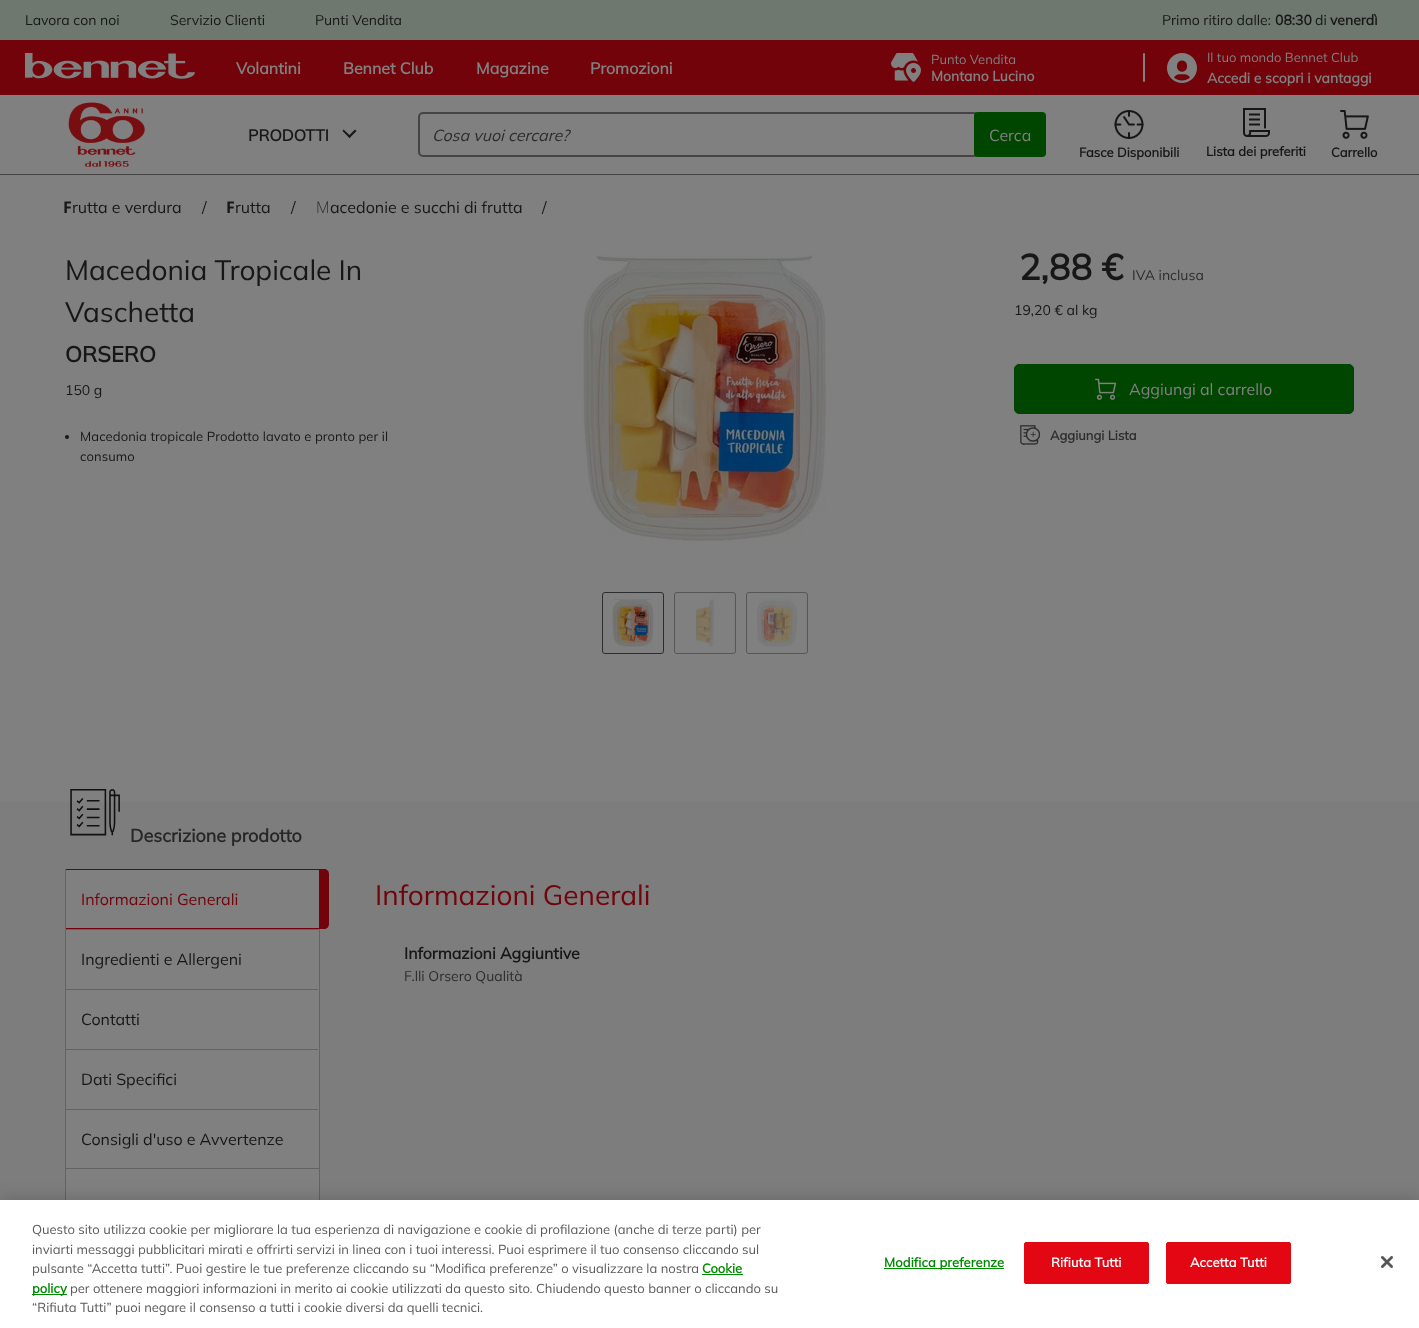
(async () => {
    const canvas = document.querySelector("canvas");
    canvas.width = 1419;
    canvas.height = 1328;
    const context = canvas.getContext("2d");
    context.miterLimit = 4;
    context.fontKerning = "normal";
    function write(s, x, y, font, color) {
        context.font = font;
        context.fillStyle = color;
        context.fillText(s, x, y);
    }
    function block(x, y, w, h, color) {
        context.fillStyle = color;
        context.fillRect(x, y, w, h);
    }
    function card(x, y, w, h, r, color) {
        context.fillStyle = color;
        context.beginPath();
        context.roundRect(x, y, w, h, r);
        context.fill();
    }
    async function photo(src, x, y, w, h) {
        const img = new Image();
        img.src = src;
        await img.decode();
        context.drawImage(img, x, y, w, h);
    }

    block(0, 0, 1419, 1328, "rgb(128, 128, 128)");
    block(0, 0, 1419, 40, "rgb(111, 120, 111)");
    write("Lavora con noi", 25, 25, "200 14px Mulish", "rgb(23, 23, 23)");
    write("Servizio Clienti", 170, 25, "200 14px Mulish", "rgb(23, 23, 23)");
    write("Punti Vendita", 315, 25, "200 14px Mulish", "rgb(23, 23, 23)");
    write("Primo ritiro dalle:", 1162, 25, "200 14px Mulish", "rgb(23, 23, 23)");
    write("08:30", 1275, 25, "bold 14px Mulish", "rgb(23, 23, 23)");
    write("di", 1315, 25, "200 14px Mulish", "rgb(23, 23, 23)");
    write("venerdì", 1330, 25, "bold 14px Mulish", "rgb(23, 23, 23)");
    block(0, 40, 1419, 55, "rgb(114, 3, 10)");
    write("Volantini", 236, 74, "bold 16px Mulish", "rgb(128, 128, 128)");
    write("Bennet Club", 343, 74, "bold 16px Mulish", "rgb(128, 128, 128)");
    write("Magazine", 476, 74, "bold 16px Mulish", "rgb(128, 128, 128)");
    write("Promozioni", 590, 74, "bold 16px Mulish", "rgb(128, 128, 128)");
    await photo("media/1.png", 891, 53, 30, 29);
    write("Punto Vendita", 931, 64, "200 13px Mulish", "rgb(128, 128, 128)");
    write("Montano Lucino", 931, 81, "bold 14px Mulish", "rgb(128, 128, 128)");
    card(1143, 53, 2, 29, 1, "rgb(128, 128, 128)");
    await photo("media/2.png", 1167, 53, 30, 30);
    write("Il tuo mondo Bennet Club", 1207, 62, "200 13px Mulish", "rgb(128, 128, 128)");
    write("Accedi e scopri i vantaggi", 1207, 83, "bold 14px Mulish", "rgb(128, 128, 128)");
    block(0, 174, 1419, 1, "rgb(68, 68, 68)");
    await photo("media/3.png", 25, 53, 170, 26);
    await photo("media/4.png", 68, 102, 77, 65);
    write("PRODOTTI", 248, 141, "bold 16px Mulish", "rgb(23, 23, 23)");
    context.beginPath();
    context.moveTo(355, 129.5);
    context.lineTo(356.5, 131);
    context.lineTo(349.5, 138);
    context.lineTo(348, 136.5);
    context.closePath();
    context.fill();
    context.beginPath();
    context.moveTo(343.5, 129.5);
    context.lineTo(351, 136.5);
    context.lineTo(349.5, 138);
    context.lineTo(342.5, 131);
    context.closePath();
    context.fill();
    context.beginPath();
    context.roundRect(419, 113, 559, 43, 4);
    context.strokeStyle = "rgb(68, 68, 68)";
    context.lineWidth = 2;
    context.stroke();
    write("Cosa vuoi cercare?", 432, 141, "italic 200 16px Mulish", "rgb(45, 45, 45)");
    card(974, 112, 72, 45, 4, "rgb(0, 69, 0)");
    write("Cerca", 989, 141, "200 16px Mulish", "rgb(128, 128, 128)");
    await photo("media/5.png", 1114, 110, 30, 29);
    write("Fasce Disponibili", 1079, 157, "bold 13px Mulish", "rgb(23, 23, 23)");
    await photo("media/6.png", 1243, 108, 27, 29);
    write("Lista dei preferiti", 1206, 156, "bold 13px Mulish", "rgb(23, 23, 23)");
    await photo("media/7.png", 1340, 110, 29, 29);
    write("Carrello", 1331, 157, "bold 13px Mulish", "rgb(23, 23, 23)");
    write("F", 63, 213, "bold 16px Noto Sans", "rgb(23, 23, 23)");
    write("rutta e verdura", 72, 213, "200 16px Mulish", "rgb(23, 23, 23)");
    write("/", 202, 213, "200 16px Mulish", "rgb(23, 23, 23)");
    write("F", 226, 213, "bold 16px Noto Sans", "rgb(23, 23, 23)");
    write("rutta", 235, 213, "200 16px Mulish", "rgb(23, 23, 23)");
    write("/", 291, 213, "200 16px Mulish", "rgb(23, 23, 23)");
    write("M", 316, 213, "200 16px Noto Sans", "rgb(23, 23, 23)");
    write("acedonie e succhi di frutta", 330, 213, "200 16px Mulish", "rgb(23, 23, 23)");
    write("/", 542, 213, "200 16px Mulish", "rgb(23, 23, 23)");
    write("Macedonia Tropicale In", 65, 280, "200 28px Mulish", "rgb(23, 23, 23)");
    write("Vaschetta", 65, 322, "200 28px Mulish", "rgb(23, 23, 23)");
    write("ORSERO", 65, 362, "bold 22px Mulish", "rgb(23, 23, 23)");
    write("150 g", 65, 395, "200 14px Mulish", "rgb(23, 23, 23)");
    context.beginPath();
    context.arc(67, 437, 2, 0, Math.PI * 2);
    context.fill();
    context.letterSpacing = "0.1px";
    write("Macedonia tropicale Prodotto lavato e pronto per il", 80, 441, "200 13px Mulish", "rgb(23, 23, 23)");
    write("consumo", 80, 461, "200 13px Mulish", "rgb(23, 23, 23)");
    await photo("media/8.png", 583, 253, 243, 288);
    context.beginPath();
    context.roundRect(602.5, 592.5, 61, 61, 2.5);
    context.strokeStyle = "rgb(45, 45, 45)";
    context.lineWidth = 1;
    context.stroke();
    await photo("media/9.png", 612, 599, 42, 48);
    context.beginPath();
    context.roundRect(674.5, 592.5, 61, 61, 2.5);
    context.strokeStyle = "rgb(86, 86, 86)";
    context.stroke();
    await photo("media/10.png", 696, 599, 18, 48);
    context.beginPath();
    context.roundRect(746.5, 592.5, 61, 61, 2.5);
    context.stroke();
    await photo("media/11.png", 757, 599, 40, 48);
    context.letterSpacing = "0px";
    write("2,88 €", 1019, 280, "bold 36px Mulish", "rgb(23, 23, 23)");
    write("IVA inclusa", 1132, 280, "200 14px Mulish", "rgb(45, 45, 45)");
    write("19,20 € al kg", 1014, 315, "200 14px Mulish", "rgb(23, 23, 23)");
    context.fillStyle = "rgb(0, 69, 0)";
    context.beginPath();
    context.roundRect(1014.5, 364.5, 339, 49, 4.5);
    context.fill();
    context.strokeStyle = "rgb(0, 69, 0)";
    context.stroke();
    await photo("media/12.png", 1095, 378, 22, 22);
    write("Aggiungi al carrello", 1129, 395, "200 16px Mulish", "rgb(128, 128, 128)");
    await photo("media/13.png", 1020, 425, 20, 20);
    write("+", 1030, 438, "bold 11px Liberation Serif", "rgb(45, 45, 45)");
    write("Aggiungi Lista", 1050, 440, "bold 13px Mulish", "rgb(45, 45, 45)");
    block(0, 802, 1419, 398, "rgb(125, 125, 125)");
    await photo("media/14.png", 70, 789, 50, 47);
    write("Descrizione prodotto", 130, 842, "bold 18px Mulish", "rgb(38, 38, 38)");
    block(66, 930, 253, 270, "rgb(128, 128, 128)");
    block(319, 929, 1, 271, "rgb(99, 99, 99)");
    block(65, 869, 1, 331, "rgb(99, 99, 99)");
    context.fillStyle = "rgb(128, 128, 128)";
    context.beginPath();
    context.roundRect(66, 869, 263, 60, [0, 5, 5, 0]);
    context.fill();
    context.fillStyle = "rgb(114, 3, 10)";
    context.beginPath();
    context.moveTo(66, 869);
    context.lineTo(324, 869);
    context.bezierCurveTo(327, 869, 329, 871, 329, 874);
    context.lineTo(329, 924);
    context.bezierCurveTo(329, 927, 327, 929, 324, 929);
    context.lineTo(66, 929);
    context.closePath();
    context.moveTo(66, 870);
    context.lineTo(319, 870);
    context.lineTo(319, 928);
    context.lineTo(66, 928);
    context.closePath();
    context.fill("evenodd");
    write("Informazioni Generali", 81, 905, "200 16px Mulish", "rgb(114, 3, 10)");
    block(66, 929, 253, 1, "rgb(99, 99, 99)");
    block(318, 929, 1, 1, "rgb(128, 128, 128)");
    write("Ingredienti e Allergeni", 81, 965, "200 16px Mulish", "rgb(23, 23, 23)");
    block(66, 989, 253, 1, "rgb(99, 99, 99)");
    block(318, 989, 1, 1, "rgb(128, 128, 128)");
    write("Contatti", 81, 1025, "200 16px Mulish", "rgb(23, 23, 23)");
    block(66, 1049, 253, 1, "rgb(99, 99, 99)");
    block(318, 1049, 1, 1, "rgb(128, 128, 128)");
    write("Dati Specifici", 81, 1085, "200 16px Mulish", "rgb(23, 23, 23)");
    block(66, 1109, 253, 1, "rgb(99, 99, 99)");
    block(318, 1109, 1, 1, "rgb(128, 128, 128)");
    block(66, 1168, 253, 1, "rgb(99, 99, 99)");
    write("Consigli d'uso e Avvertenze", 81, 1145, "200 16px Mulish", "rgb(23, 23, 23)");
    write("Informazioni Generali", 375, 905, "200 28px Mulish", "rgb(114, 3, 10)");
    write("Informazioni Aggiuntive", 404, 959, "bold 16px Mulish", "rgb(23, 23, 23)");
    write("F.lli Orsero Qualità", 404, 981, "200 14px Mulish", "rgb(45, 45, 45)");
    context.fillStyle = "rgba(0, 0, 0, 0.2)";
    context.filter = "blur(9px)";
    context.beginPath();
    context.rect(0, 1200, 1419, 128);
    context.fill();
    context.filter = "none";
    block(0, 1200, 1419, 128, "rgb(255, 255, 255)");
    write("Questo sito utilizza cookie per migliorare la tua esperienza di navigazione e cookie di profilazione (anche di terze parti) per", 32, 1234, "200 13px Mulish", "rgb(89, 89, 89)");
    write("inviarti messaggi pubblicitari mirati e offrirti servizi in linea con i tuoi interessi. Puoi esprimere il tuo consenso cliccando sul", 32, 1254, "200 13px Mulish", "rgb(89, 89, 89)");
    write("pulsante “Accetta tutti”. Puoi gestire le tue preferenze cliccando su “Modifica preferenze” o visualizzare la nostra", 32, 1273, "200 13px Mulish", "rgb(89, 89, 89)");
    write("Cookie", 702, 1273, "bold 13px Mulish", "rgb(0, 138, 0)");
    block(702, 1274, 41, 1, "rgb(0, 138, 0)");
    block(32, 1294, 35, 1, "rgb(0, 138, 0)");
    write("policy", 32, 1293, "bold 13px Mulish", "rgb(0, 138, 0)");
    write("per ottenere maggiori informazioni in merito ai cookie utilizzati da questo sito. Chiudendo questo banner o cliccando su", 70, 1293, "200 13px Mulish", "rgb(89, 89, 89)");
    write("“Rifiuta Tutti” puoi negare il consenso a tutti i cookie diversi da quelli tecnici.", 32, 1312, "200 13px Mulish", "rgb(89, 89, 89)");
    block(884, 1268, 120, 1, "rgb(0, 138, 0)");
    context.letterSpacing = "0.1px";
    write("Modifica preferenze", 884, 1267, "bold 13px Mulish", "rgb(0, 138, 0)");
    context.fillStyle = "rgb(227, 6, 19)";
    context.beginPath();
    context.roundRect(1024.5, 1242.5, 124, 41, 1.5);
    context.fill();
    context.strokeStyle = "rgb(227, 6, 19)";
    context.stroke();
    write("Rifiuta Tutti", 1051, 1267, "bold 13px Mulish", "rgb(255, 255, 255)");
    context.fillStyle = "rgb(227, 6, 19)";
    context.beginPath();
    context.roundRect(1166.5, 1242.5, 124, 41, 1.5);
    context.fill();
    context.stroke();
    write("Accetta Tutti", 1190, 1267, "bold 13px Mulish", "rgb(255, 255, 255)");
    await photo("media/15.png", 1381, 1256, 12, 12);
})();
